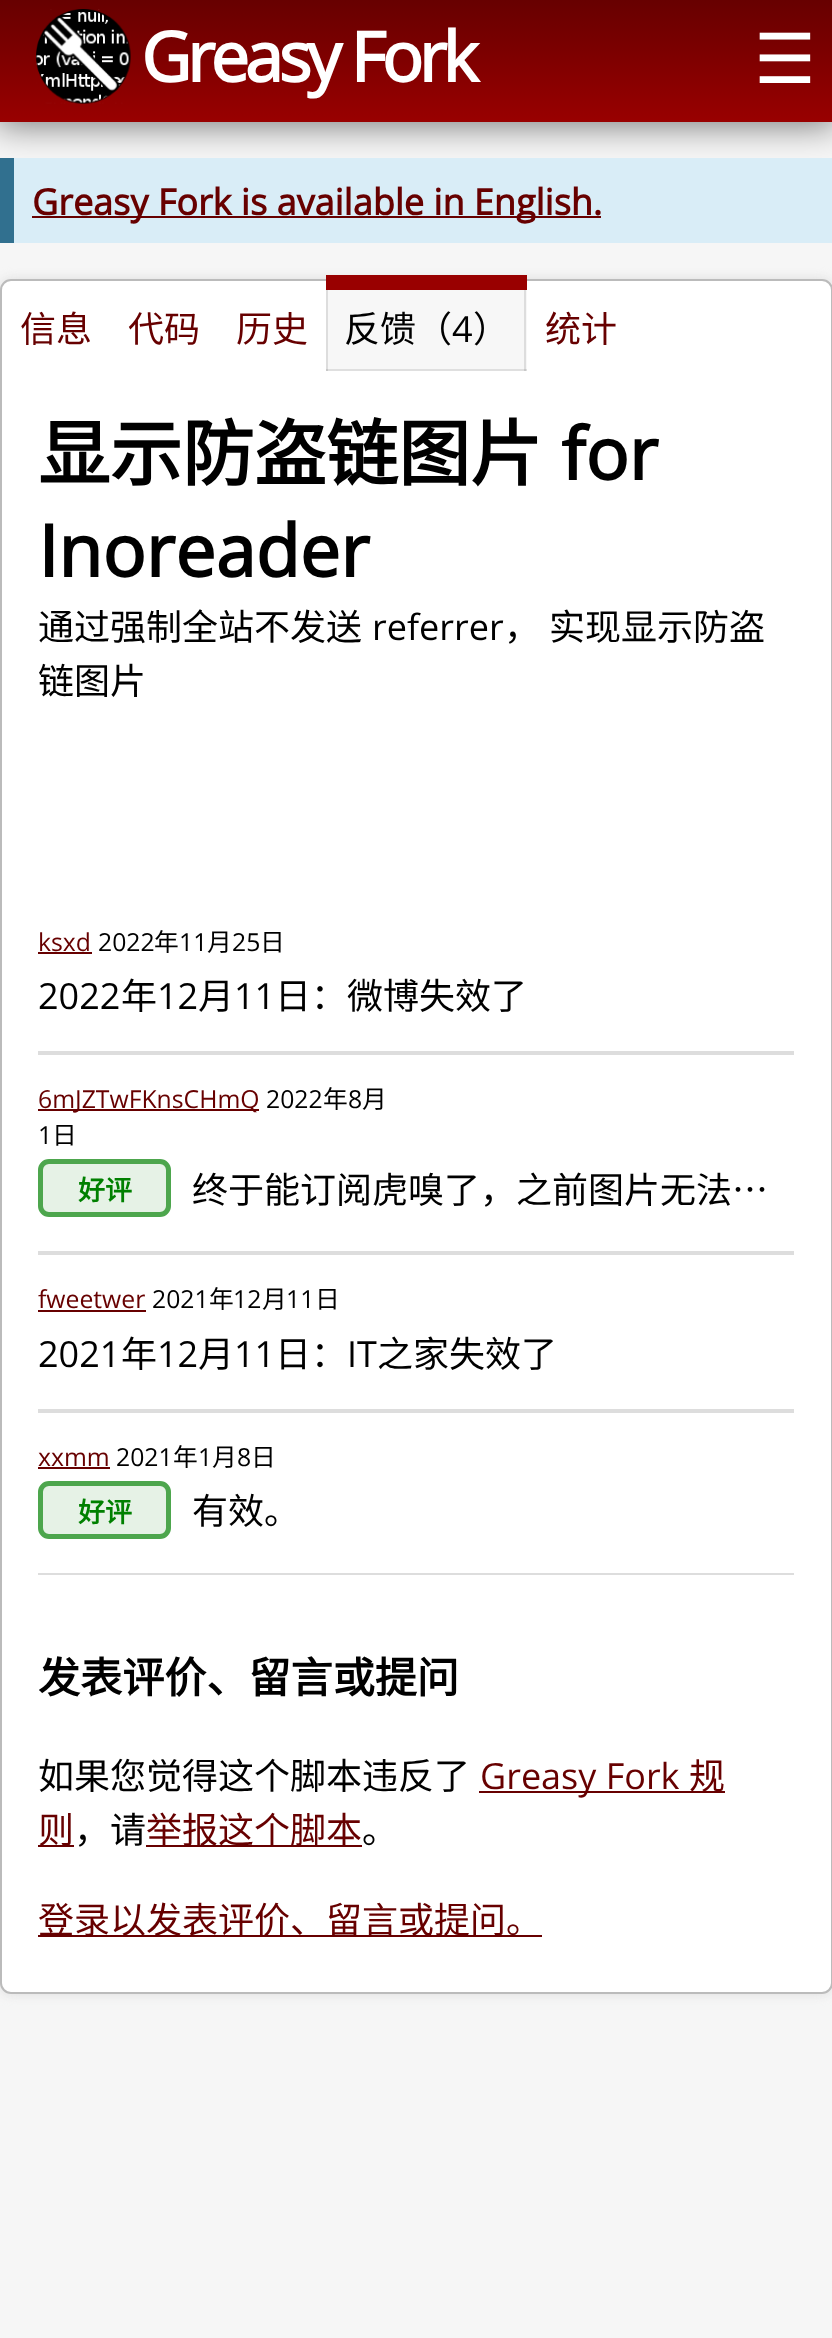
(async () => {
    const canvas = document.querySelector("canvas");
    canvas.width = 832;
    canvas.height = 2338;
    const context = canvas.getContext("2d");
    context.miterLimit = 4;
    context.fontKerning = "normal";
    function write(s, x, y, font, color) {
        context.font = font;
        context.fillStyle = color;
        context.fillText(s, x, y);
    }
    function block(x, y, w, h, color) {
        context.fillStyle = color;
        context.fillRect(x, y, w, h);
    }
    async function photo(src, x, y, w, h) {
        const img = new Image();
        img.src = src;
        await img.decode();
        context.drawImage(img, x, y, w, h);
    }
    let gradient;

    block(0, 0, 832, 2338, "rgb(246, 246, 246)");
    context.fillStyle = "rgba(0, 0, 0, 0.5)";
    context.filter = "blur(17px)";
    context.beginPath();
    context.rect(-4, -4, 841, 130);
    context.fill();
    context.filter = "none";
    gradient = context.createLinearGradient(416, 0, 416, 122);
    gradient.addColorStop(0, "rgb(103, 0, 0)");
    gradient.addColorStop(1, "rgb(153, 0, 0)");
    context.fillStyle = gradient;
    context.fillRect(0, 0, 832, 122);
    await photo("media/1.png", 36, 9, 95, 95);
    context.letterSpacing = "-4.5px";
    write("Greasy Fork", 141, 82, "bold 69px Open Sans", "rgb(255, 255, 255)");
    context.letterSpacing = "0px";
    write("☰", 754, 83, "69px DejaVu Sans", "rgb(255, 255, 255)");
    block(14, 158, 818, 85, "rgb(217, 237, 247)");
    block(0, 158, 14, 85, "rgb(49, 112, 143)");
    block(32, 216, 569, 2, "rgb(103, 0, 0)");
    write("Greasy Fork is available in English.", 32, 215, "bold 36px Open Sans", "rgb(103, 0, 0)");
    context.fillStyle = "rgb(221, 221, 221)";
    context.filter = "blur(5.5px)";
    context.beginPath();
    context.roundRect(0, 279, 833, 1715, 11);
    context.fill();
    context.filter = "none";
    context.fillStyle = "rgb(255, 255, 255)";
    context.beginPath();
    context.roundRect(1, 280, 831, 1713, 10);
    context.fill();
    context.strokeStyle = "rgb(187, 187, 187)";
    context.lineWidth = 2;
    context.stroke();
    write("信息", 20, 342, "36px Noto Sans CJK SC", "rgb(103, 0, 0)");
    write("代码", 128, 342, "36px Noto Sans CJK SC", "rgb(103, 0, 0)");
    write("历史", 236, 342, "36px Noto Sans CJK SC", "rgb(103, 0, 0)");
    block(326, 290, 201, 79, "rgba(0, 0, 0, 0.03)");
    block(326, 369, 201, 2, "rgb(223, 223, 223)");
    block(524, 290, 2, 81, "rgba(0, 0, 0, 0.1)");
    block(326, 290, 2, 81, "rgba(0, 0, 0, 0.1)");
    block(326, 275, 201, 15, "rgb(153, 0, 0)");
    write("反馈（", 344, 342, "36px Noto Sans CJK SC", "rgb(0, 0, 0)");
    write("4", 452, 342, "36px Open Sans", "rgb(0, 0, 0)");
    write("）", 473, 342, "36px Noto Sans CJK SC", "rgb(0, 0, 0)");
    write("统计", 545, 342, "36px Noto Sans CJK SC", "rgb(103, 0, 0)");
    write("显示防盗链图片", 38, 480, "bold 72px Noto Sans CJK SC", "rgb(0, 0, 0)");
    write("for", 561, 480, "bold 72px Open Sans", "rgb(0, 0, 0)");
    write("Inoreader", 38, 577, "bold 72px Open Sans", "rgb(0, 0, 0)");
    write("通过强制全站不发送", 38, 640, "36px Noto Sans CJK SC", "rgb(0, 0, 0)");
    write("referrer", 372, 640, "36px Open Sans", "rgb(0, 0, 0)");
    context.wordSpacing = "1px";
    write("， 实现显示防盗", 504, 640, "36px Noto Sans CJK SC", "rgb(0, 0, 0)");
    context.wordSpacing = "0px";
    write("链图片", 38, 694, "36px Noto Sans CJK SC", "rgb(0, 0, 0)");
    block(38, 1051, 756, 4, "rgb(221, 221, 221)");
    write("ksxd", 38, 951, "24.75px Open Sans", "rgb(103, 0, 0)");
    block(38, 952, 54, 2, "rgb(103, 0, 0)");
    write("2022", 98, 951, "24.75px Open Sans", "rgb(0, 0, 0)");
    write("年", 154, 951, "24.75px Noto Sans CJK SC", "rgb(0, 0, 0)");
    write("11", 179, 951, "24.75px Open Sans", "rgb(0, 0, 0)");
    write("月", 207, 951, "24.75px Noto Sans CJK SC", "rgb(0, 0, 0)");
    write("25", 232, 951, "24.75px Open Sans", "rgb(0, 0, 0)");
    write("日", 260, 951, "24.75px Noto Sans CJK SC", "rgb(0, 0, 0)");
    write("2022", 38, 1009, "36px Open Sans", "rgb(0, 0, 0)");
    write("年", 121, 1009, "36px Noto Sans CJK SC", "rgb(0, 0, 0)");
    write("12", 157, 1009, "36px Open Sans", "rgb(0, 0, 0)");
    write("月", 198, 1009, "36px Noto Sans CJK SC", "rgb(0, 0, 0)");
    write("11", 234, 1009, "36px Open Sans", "rgb(0, 0, 0)");
    write("日：微博失效了", 275, 1009, "36px Noto Sans CJK SC", "rgb(0, 0, 0)");
    block(38, 1251, 756, 4, "rgb(221, 221, 221)");
    block(38, 1109, 221, 2, "rgb(103, 0, 0)");
    write("6mJZTwFKnsCHmQ", 38, 1108, "24.75px Open Sans", "rgb(103, 0, 0)");
    write("2022", 266, 1108, "24.75px Open Sans", "rgb(0, 0, 0)");
    write("年", 323, 1108, "24.75px Noto Sans CJK SC", "rgb(0, 0, 0)");
    write("8", 348, 1108, "24.75px Open Sans", "rgb(0, 0, 0)");
    write("月", 362, 1108, "24.75px Noto Sans CJK SC", "rgb(0, 0, 0)");
    write("1", 38, 1144, "24.75px Open Sans", "rgb(0, 0, 0)");
    write("日", 52, 1144, "24.75px Noto Sans CJK SC", "rgb(0, 0, 0)");
    context.fillStyle = "rgb(230, 242, 230)";
    context.beginPath();
    context.roundRect(40.5, 1161.5, 128, 53, 8.5);
    context.fill();
    context.strokeStyle = "rgb(77, 166, 77)";
    context.lineWidth = 5;
    context.stroke();
    write("好评", 78, 1200, "bold 27px Noto Sans CJK SC", "rgb(0, 128, 0)");
    write("终于能订阅虎嗅了，之前图片无法…", 192, 1203, "36px Noto Sans CJK SC", "rgb(0, 0, 0)");
    block(38, 1409, 756, 4, "rgb(221, 221, 221)");
    write("fweetwer", 38, 1308, "24.75px Open Sans", "rgb(103, 0, 0)");
    block(38, 1310, 108, 2, "rgb(103, 0, 0)");
    write("2021", 152, 1308, "24.75px Open Sans", "rgb(0, 0, 0)");
    write("年", 209, 1308, "24.75px Noto Sans CJK SC", "rgb(0, 0, 0)");
    write("12", 233, 1308, "24.75px Open Sans", "rgb(0, 0, 0)");
    write("月", 262, 1308, "24.75px Noto Sans CJK SC", "rgb(0, 0, 0)");
    write("11", 286, 1308, "24.75px Open Sans", "rgb(0, 0, 0)");
    write("日", 315, 1308, "24.75px Noto Sans CJK SC", "rgb(0, 0, 0)");
    write("2021", 38, 1367, "36px Open Sans", "rgb(0, 0, 0)");
    write("年", 121, 1367, "36px Noto Sans CJK SC", "rgb(0, 0, 0)");
    write("12", 157, 1367, "36px Open Sans", "rgb(0, 0, 0)");
    write("月", 198, 1367, "36px Noto Sans CJK SC", "rgb(0, 0, 0)");
    write("11", 234, 1367, "36px Open Sans", "rgb(0, 0, 0)");
    write("日：", 275, 1367, "36px Noto Sans CJK SC", "rgb(0, 0, 0)");
    write("IT", 347, 1367, "36px Open Sans", "rgb(0, 0, 0)");
    write("之家失效了", 377, 1367, "36px Noto Sans CJK SC", "rgb(0, 0, 0)");
    block(38, 1573, 756, 2, "rgb(221, 221, 221)");
    write("xxmm", 38, 1466, "24.75px Open Sans", "rgb(103, 0, 0)");
    block(38, 1467, 72, 2, "rgb(103, 0, 0)");
    write("2021", 116, 1466, "24.75px Open Sans", "rgb(0, 0, 0)");
    write("年", 173, 1466, "24.75px Noto Sans CJK SC", "rgb(0, 0, 0)");
    write("1", 198, 1466, "24.75px Open Sans", "rgb(0, 0, 0)");
    write("月", 212, 1466, "24.75px Noto Sans CJK SC", "rgb(0, 0, 0)");
    write("8", 237, 1466, "24.75px Open Sans", "rgb(0, 0, 0)");
    write("日", 251, 1466, "24.75px Noto Sans CJK SC", "rgb(0, 0, 0)");
    context.fillStyle = "rgb(230, 242, 230)";
    context.beginPath();
    context.roundRect(40.5, 1483.5, 128, 53, 8.5);
    context.fill();
    context.stroke();
    write("好评", 78, 1522, "bold 27px Noto Sans CJK SC", "rgb(0, 128, 0)");
    write("有效。", 192, 1524, "36px Noto Sans CJK SC", "rgb(0, 0, 0)");
    write("发表评价、留言或提问", 38, 1693, "bold 42.1px Noto Sans CJK SC", "rgb(0, 0, 0)");
    write("如果您觉得这个脚本违反了", 38, 1789, "36px Noto Sans CJK SC", "rgb(0, 0, 0)");
    block(479, 1791, 246, 2, "rgb(103, 0, 0)");
    write("Greasy Fork", 480, 1789, "36px Open Sans", "rgb(103, 0, 0)");
    write("规", 689, 1789, "36px Noto Sans CJK SC", "rgb(103, 0, 0)");
    block(38, 1845, 36, 2, "rgb(103, 0, 0)");
    write("则", 38, 1843, "36px Noto Sans CJK SC", "rgb(103, 0, 0)");
    write("，请", 74, 1843, "36px Noto Sans CJK SC", "rgb(0, 0, 0)");
    block(146, 1845, 216, 2, "rgb(103, 0, 0)");
    write("举报这个脚本", 146, 1843, "36px Noto Sans CJK SC", "rgb(103, 0, 0)");
    write("。", 362, 1843, "36px Noto Sans CJK SC", "rgb(0, 0, 0)");
    block(38, 1935, 504, 2, "rgb(103, 0, 0)");
    write("登录以发表评价、留言或提问。", 38, 1933, "36px Noto Sans CJK SC", "rgb(103, 0, 0)");
})();
